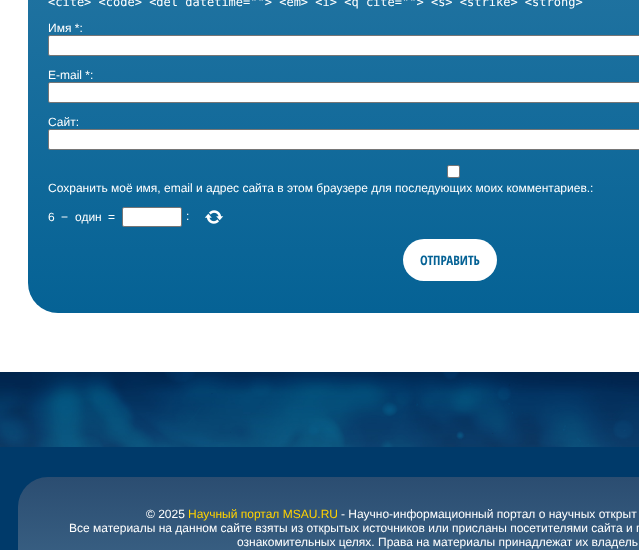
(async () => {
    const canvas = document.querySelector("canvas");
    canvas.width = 639;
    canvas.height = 550;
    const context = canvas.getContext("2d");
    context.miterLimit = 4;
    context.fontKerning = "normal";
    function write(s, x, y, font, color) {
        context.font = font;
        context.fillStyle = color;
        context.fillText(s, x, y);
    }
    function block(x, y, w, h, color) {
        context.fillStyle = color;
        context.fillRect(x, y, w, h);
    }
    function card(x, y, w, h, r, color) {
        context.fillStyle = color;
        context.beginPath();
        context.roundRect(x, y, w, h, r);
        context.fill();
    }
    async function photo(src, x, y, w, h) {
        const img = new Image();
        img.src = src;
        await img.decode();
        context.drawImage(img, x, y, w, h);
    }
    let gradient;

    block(0, 0, 639, 550, "rgb(255, 255, 255)");
    gradient = context.createLinearGradient(450, -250, 450, 313);
    gradient.addColorStop(0, "rgb(50, 126, 168)");
    gradient.addColorStop(1, "rgb(5, 98, 149)");
    context.fillStyle = gradient;
    context.beginPath();
    context.roundRect(28, -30, 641, 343, 30);
    context.fill();
    write("<cite> <code> <del datetime=\"\"> <em> <i> <q cite=\"\"> <s> <strike> <strong>", 48, 6, "12px DejaVu Sans Mono", "rgb(255, 255, 255)");
    write("Имя *:", 48, 32, "12px Liberation Sans", "rgb(255, 255, 255)");
    context.beginPath();
    context.roundRect(48.5, 35.5, 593, 20, 1.5);
    context.fill();
    context.strokeStyle = "rgb(118, 118, 118)";
    context.stroke();
    write("E-mail *:", 48, 79, "12px Liberation Sans", "rgb(255, 255, 255)");
    context.beginPath();
    context.roundRect(48.5, 82.5, 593, 20, 1.5);
    context.fill();
    context.stroke();
    write("Сайт:", 48, 126, "12px Liberation Sans", "rgb(255, 255, 255)");
    context.beginPath();
    context.roundRect(48.5, 129.5, 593, 20, 1.5);
    context.fill();
    context.stroke();
    context.beginPath();
    context.roundRect(447.5, 165.5, 12, 12, 1.5);
    context.fill();
    context.stroke();
    write("Сохранить моё имя, email и адрес сайта в этом браузере для последующих моих комментариев.:", 48, 192, "12px Liberation Sans", "rgb(255, 255, 255)");
    write("6", 48, 221, "12px Liberation Sans", "rgb(255, 255, 255)");
    write("−", 61, 221, "12px Liberation Sans", "rgb(255, 255, 255)");
    write("один", 75, 221, "12px Liberation Sans", "rgb(255, 255, 255)");
    write("=", 108, 221, "12px Liberation Sans", "rgb(255, 255, 255)");
    context.beginPath();
    context.roundRect(122.5, 207.5, 59, 19, 1.5);
    context.fill();
    context.stroke();
    write(":", 186, 220, "12px Liberation Sans", "rgb(255, 255, 255)");
    await photo("media/1.png", 204, 210, 20, 14);
    card(403, 239, 94, 42, 21, "rgb(255, 255, 255)");
    write("ОТПРАВИТЬ", 420, 265, "bold 13px Open Sans Condensed", "rgb(5, 98, 149)");
    await photo("media/2.png", 0, 372, 639, 75);
    block(0, 447, 639, 103, "rgb(0, 58, 106)");
    gradient = context.createLinearGradient(450, 477, 450, 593);
    gradient.addColorStop(0, "rgb(43, 77, 113)");
    gradient.addColorStop(1, "rgb(62, 103, 138)");
    context.fillStyle = gradient;
    context.beginPath();
    context.roundRect(18, 477, 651, 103, 30);
    context.fill();
    write("© 2025", 146, 518, "12px Liberation Sans", "rgb(255, 255, 255)");
    write("Научный портал MSAU.RU", 188, 518, "12px Liberation Sans", "rgb(255, 210, 0)");
    write("- Научно-информационный портал о научных открыт", 341, 518, "12px Liberation Sans", "rgb(255, 255, 255)");
    write("Все материалы на данном сайте взяты из открытых источников или присланы посетителями сайта и п", 69, 532, "12px Liberation Sans", "rgb(255, 255, 255)");
    write("ознакомительных целях. Права на материалы принадлежат их владель", 237, 546, "12px Liberation Sans", "rgb(255, 255, 255)");
})();
